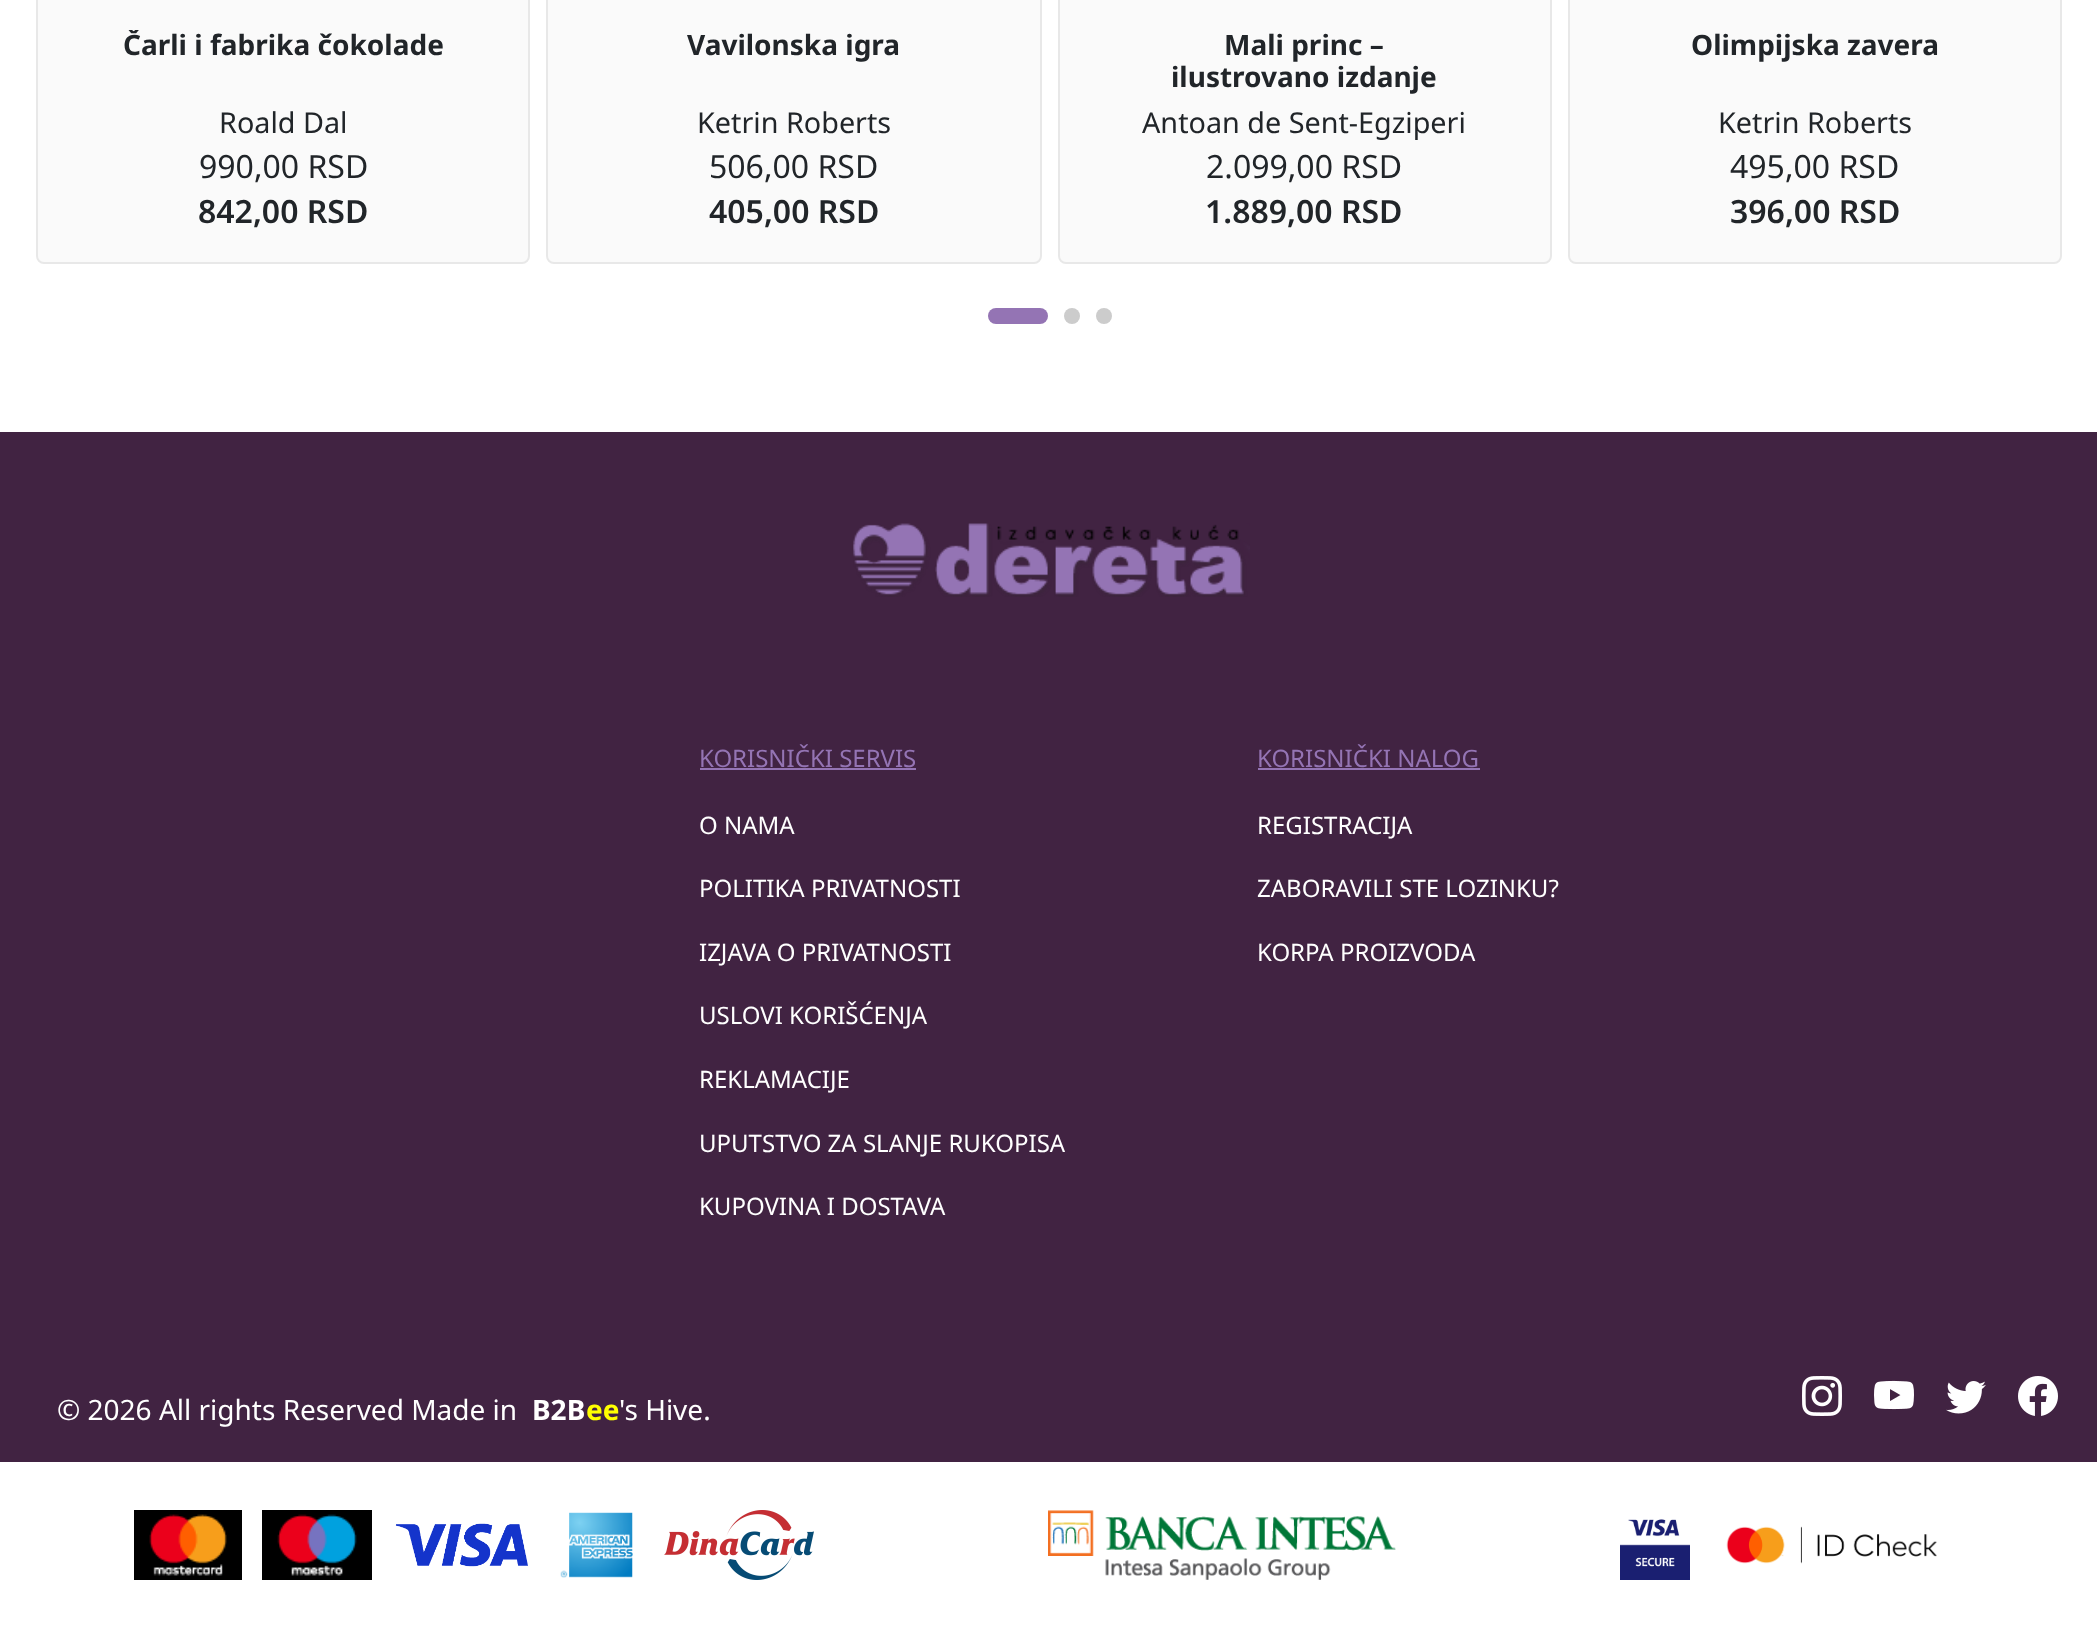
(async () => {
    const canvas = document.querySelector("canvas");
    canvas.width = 2097;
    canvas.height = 1627;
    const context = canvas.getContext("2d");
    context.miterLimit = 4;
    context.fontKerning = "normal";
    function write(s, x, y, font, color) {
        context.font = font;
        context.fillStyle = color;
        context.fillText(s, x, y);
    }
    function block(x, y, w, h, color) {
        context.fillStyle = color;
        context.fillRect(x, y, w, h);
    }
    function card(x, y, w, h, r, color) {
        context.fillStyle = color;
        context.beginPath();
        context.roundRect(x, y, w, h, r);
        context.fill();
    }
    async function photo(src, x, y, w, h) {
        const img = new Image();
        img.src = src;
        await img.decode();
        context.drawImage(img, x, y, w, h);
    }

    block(0, 0, 2097, 1627, "rgb(255, 255, 255)");
    card(38, -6, 490, 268, 6, "rgb(250, 250, 250)");
    context.beginPath();
    context.roundRect(37, -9, 492, 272, 7);
    context.strokeStyle = "rgb(232, 232, 232)";
    context.lineWidth = 2;
    context.stroke();
    context.save();
    context.beginPath();
    context.rect(70, 30, 426, 70);
    context.clip();
    write("Čarli i fabrika čokolade", 123, 55, "bold 28px Noto Sans", "rgb(33, 37, 41)");
    context.restore();
    write("Roald Dal", 219, 133, "28.75px Noto Sans", "rgb(33, 37, 41)");
    write("990,00 RSD", 199, 178, "32px Noto Sans", "rgb(33, 37, 41)");
    write("842,00 RSD", 198, 223, "600 32px Noto Sans", "rgb(33, 37, 41)");
    card(548, -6, 492, 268, 6, "rgb(250, 250, 250)");
    context.beginPath();
    context.roundRect(547, -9, 494, 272, 7);
    context.stroke();
    write("Vavilonska igra", 687, 55, "bold 28px Noto Sans", "rgb(33, 37, 41)");
    write("Ketrin Roberts", 697, 133, "28.75px Noto Sans", "rgb(33, 37, 41)");
    write("506,00 RSD", 709, 178, "32px Noto Sans", "rgb(33, 37, 41)");
    write("405,00 RSD", 709, 223, "600 32px Noto Sans", "rgb(33, 37, 41)");
    card(1060, -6, 490, 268, 6, "rgb(250, 250, 250)");
    context.beginPath();
    context.roundRect(1059, -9, 492, 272, 7);
    context.stroke();
    write("Mali princ –", 1224, 55, "bold 28px Noto Sans", "rgb(33, 37, 41)");
    write("ilustrovano izdanje", 1171, 87, "bold 28px Noto Sans", "rgb(33, 37, 41)");
    write("Antoan de Sent-Egziperi", 1142, 133, "28.75px Noto Sans", "rgb(33, 37, 41)");
    write("2.099,00 RSD", 1206, 178, "32px Noto Sans", "rgb(33, 37, 41)");
    write("1.889,00 RSD", 1205, 223, "600 32px Noto Sans", "rgb(33, 37, 41)");
    card(1570, -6, 490, 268, 6, "rgb(250, 250, 250)");
    context.beginPath();
    context.roundRect(1569, -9, 492, 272, 7);
    context.stroke();
    write("Olimpijska zavera", 1691, 55, "bold 28px Noto Sans", "rgb(33, 37, 41)");
    write("Ketrin Roberts", 1718, 133, "28.75px Noto Sans", "rgb(33, 37, 41)");
    write("495,00 RSD", 1730, 178, "32px Noto Sans", "rgb(33, 37, 41)");
    write("396,00 RSD", 1730, 223, "600 32px Noto Sans", "rgb(33, 37, 41)");
    card(988, 308, 60, 16, 8, "rgb(148, 116, 180)");
    context.fillStyle = "rgb(204, 204, 204)";
    context.beginPath();
    context.arc(1072, 316, 8, 0, Math.PI * 2);
    context.fill();
    context.beginPath();
    context.arc(1104, 316, 8, 0, Math.PI * 2);
    context.fill();
    block(0, 432, 2097, 1030, "rgb(65, 35, 66)");
    await photo("media/1.png", 853, 523, 397, 74);
    write("KORISNIČKI SERVIS", 699, 767, "24px Noto Sans", "rgb(148, 116, 180)");
    block(700, 768, 216, 2, "rgb(148, 116, 180)");
    write("O NAMA", 699, 834, "24px Noto Sans", "rgb(255, 255, 255)");
    write("POLITIKA PRIVATNOSTI", 699, 897, "24px Noto Sans", "rgb(255, 255, 255)");
    write("IZJAVA O PRIVATNOSTI", 699, 961, "24px Noto Sans", "rgb(255, 255, 255)");
    write("USLOVI KORIŠĆENJA", 699, 1024, "24px Noto Sans", "rgb(255, 255, 255)");
    write("REKLAMACIJE", 699, 1088, "24px Noto Sans", "rgb(255, 255, 255)");
    write("UPUTSTVO ZA SLANJE RUKOPISA", 699, 1152, "24px Noto Sans", "rgb(255, 255, 255)");
    write("KUPOVINA I DOSTAVA", 699, 1215, "24px Noto Sans", "rgb(255, 255, 255)");
    write("KORISNIČKI NALOG", 1257, 767, "24px Noto Sans", "rgb(148, 116, 180)");
    block(1258, 768, 222, 2, "rgb(148, 116, 180)");
    write("REGISTRACIJA", 1257, 834, "24px Noto Sans", "rgb(255, 255, 255)");
    write("ZABORAVILI STE LOZINKU?", 1257, 897, "24px Noto Sans", "rgb(255, 255, 255)");
    write("KORPA PROIZVODA", 1257, 961, "24px Noto Sans", "rgb(255, 255, 255)");
    write("© 2026 All rights Reserved Made in", 57, 1420, "28px Noto Sans", "rgb(255, 255, 255)");
    write("B2B", 532, 1420, "bold 28px Noto Sans", "rgb(255, 255, 255)");
    write("ee", 586, 1420, "bold 28px Noto Sans", "rgb(255, 255, 0)");
    write("'s Hive.", 619, 1420, "28px Noto Sans", "rgb(255, 255, 255)");
    await photo("media/2.png", 1802, 1376, 40, 40);
    await photo("media/3.png", 1874, 1380, 40, 30);
    await photo("media/4.png", 1946, 1381, 40, 33);
    await photo("media/5.png", 2018, 1376, 40, 40);
    await photo("media/6.png", 134, 1510, 108, 70);
    await photo("media/7.png", 262, 1510, 110, 70);
    await photo("media/8.png", 395, 1523, 133, 44);
    await photo("media/9.png", 560, 1512, 73, 66);
    await photo("media/10.png", 664, 1510, 150, 70);
    await photo("media/11.png", 1048, 1510, 348, 70);
    await photo("media/12.png", 1620, 1519, 70, 61);
    await photo("media/13.png", 1726, 1526, 211, 38);
})();
